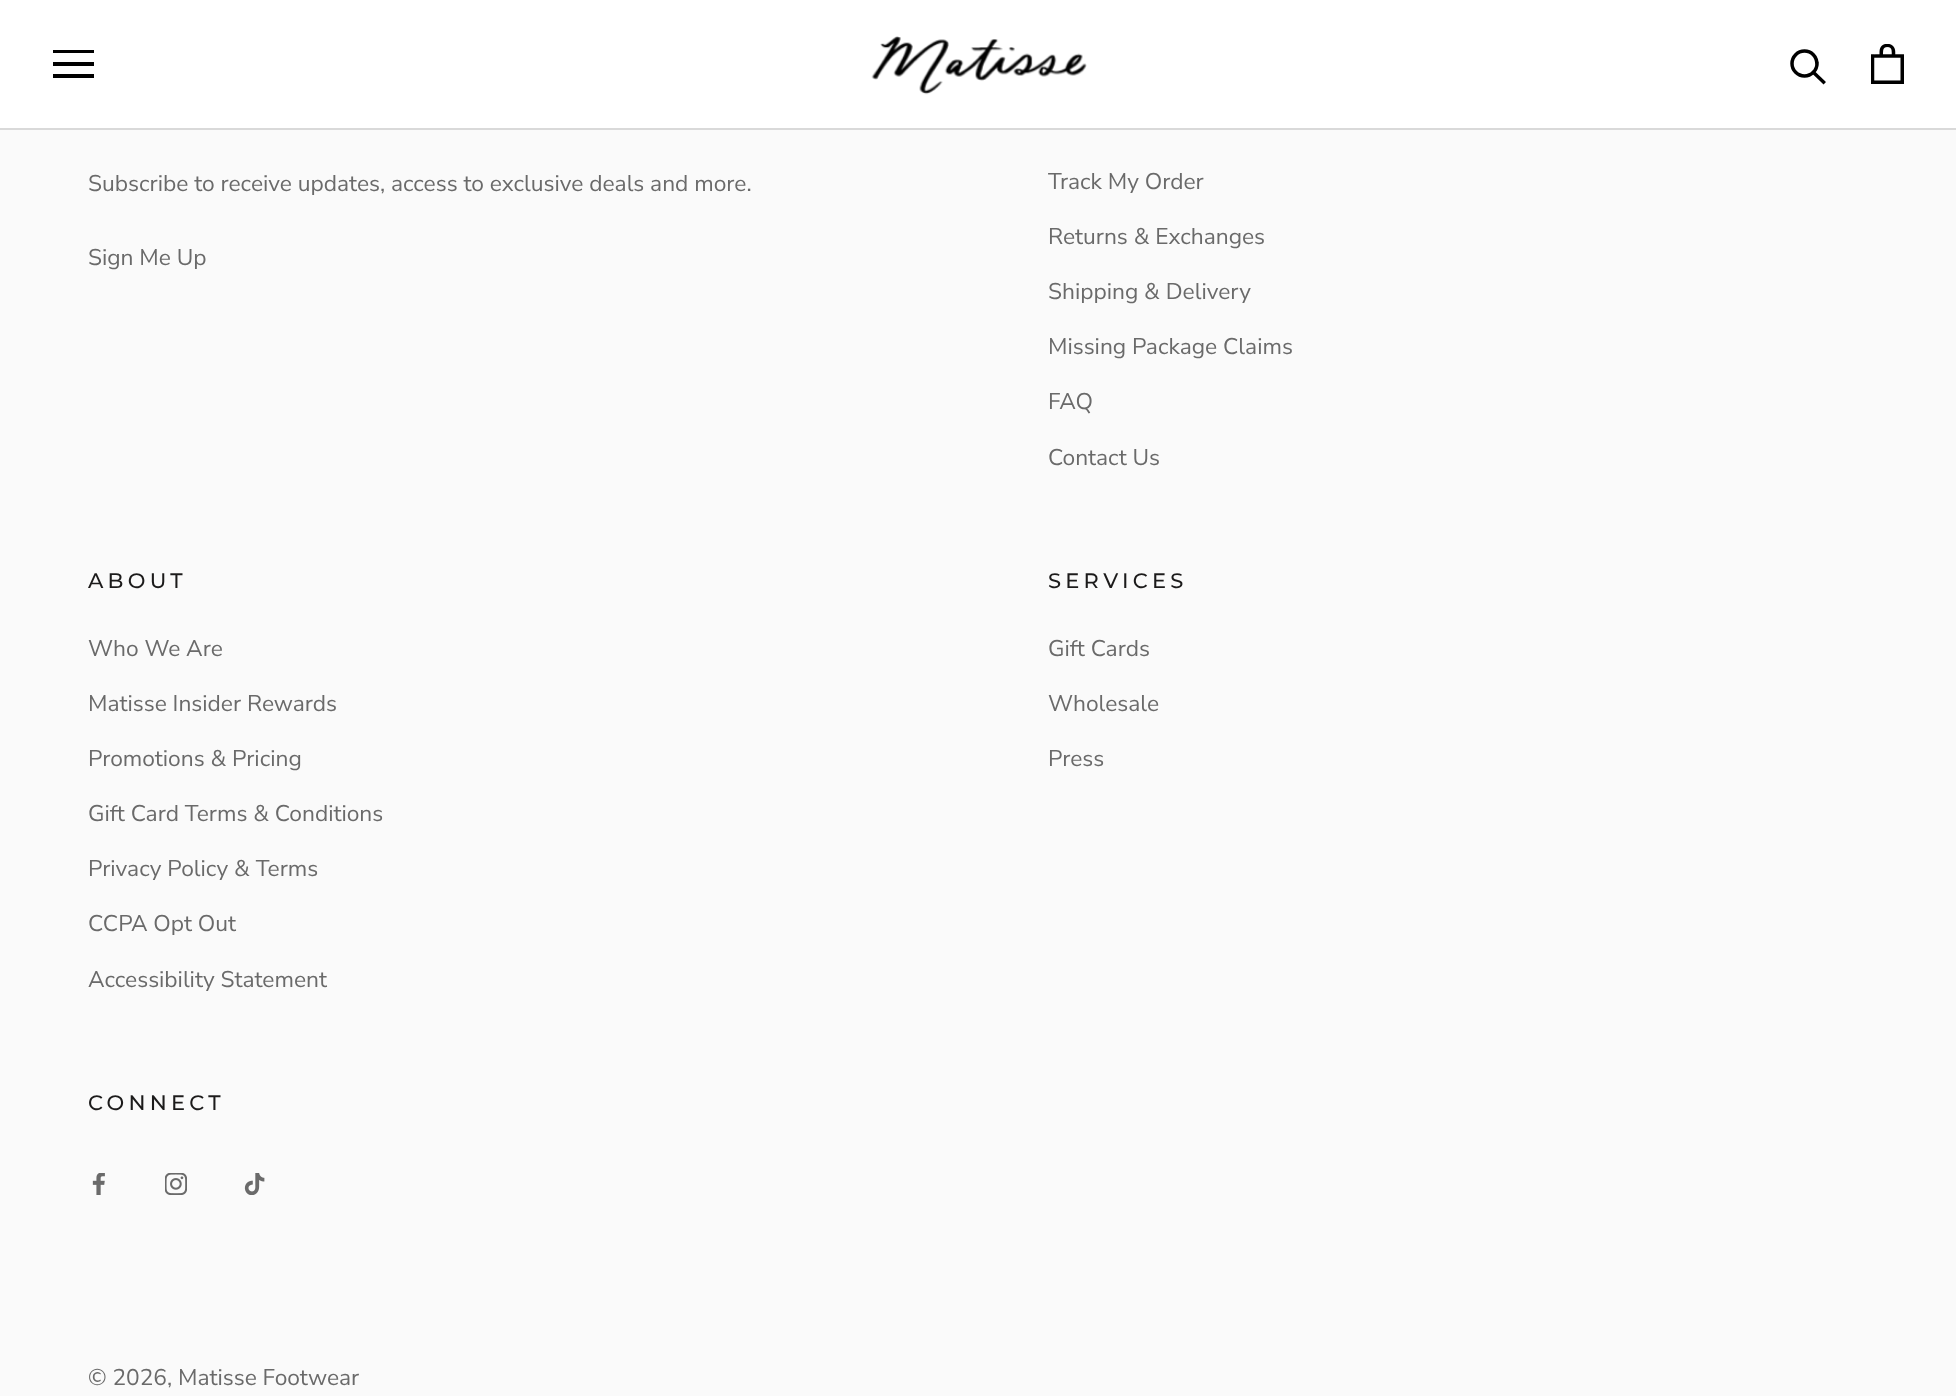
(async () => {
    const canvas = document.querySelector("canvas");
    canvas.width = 1956;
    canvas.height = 1396;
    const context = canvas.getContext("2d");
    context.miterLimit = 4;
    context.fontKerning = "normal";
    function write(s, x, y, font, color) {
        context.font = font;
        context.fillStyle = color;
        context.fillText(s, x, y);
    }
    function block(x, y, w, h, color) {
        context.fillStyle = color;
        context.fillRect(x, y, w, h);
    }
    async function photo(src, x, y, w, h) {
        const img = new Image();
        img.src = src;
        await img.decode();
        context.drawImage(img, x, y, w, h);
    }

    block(0, 0, 1956, 1396, "rgb(250, 250, 250)");
    block(0, 0, 1956, 128, "rgb(255, 255, 255)");
    block(0, 128, 1956, 2, "rgb(217, 217, 217)");
    context.save();
    context.beginPath();
    context.rect(53, 49, 42, 30);
    context.clip();
    context.fillStyle = "rgb(0, 0, 0)";
    context.beginPath();
    context.moveTo(52, 78);
    context.lineTo(52, 74);
    context.lineTo(94, 74);
    context.lineTo(94, 78);
    context.closePath();
    context.moveTo(52, 62);
    context.lineTo(94, 62);
    context.lineTo(94, 66);
    context.lineTo(52, 66);
    context.closePath();
    context.moveTo(52, 50);
    context.lineTo(94, 50);
    context.lineTo(94, 53);
    context.lineTo(52, 53);
    context.closePath();
    context.fill();
    context.restore();
    await photo("media/1.png", 871, 36, 216, 59);
    context.beginPath();
    context.moveTo(1823.5, 82);
    context.lineTo(1813.5, 72.5);
    context.strokeStyle = "rgb(0, 0, 0)";
    context.lineWidth = 3.5;
    context.lineCap = "square";
    context.stroke();
    context.beginPath();
    context.arc(1804.5, 63.5, 12.5, 0, Math.PI * 2);
    context.stroke();
    await photo("media/2.png", 1871, 44, 33, 40);
    write("Subscribe to receive updates, access to exclusive deals and more.", 88, 191, "22.75px Nunito Sans", "rgb(106, 106, 106)");
    write("Sign Me Up", 88, 265, "22.75px Nunito Sans", "rgb(106, 106, 106)");
    write("Track My Order", 1048, 189, "22.75px Nunito Sans", "rgb(106, 106, 106)");
    write("Returns & Exchanges", 1048, 244, "22.75px Nunito Sans", "rgb(106, 106, 106)");
    write("Shipping & Delivery", 1048, 299, "22.75px Nunito Sans", "rgb(106, 106, 106)");
    write("Missing Package Claims", 1048, 354, "22.75px Nunito Sans", "rgb(106, 106, 106)");
    write("FAQ", 1048, 409, "22.75px Nunito Sans", "rgb(106, 106, 106)");
    write("Contact Us", 1048, 465, "22.75px Nunito Sans", "rgb(106, 106, 106)");
    context.letterSpacing = "4.25px";
    write("ABOUT", 88, 588, "500 21px Montserrat", "rgb(28, 27, 27)");
    context.letterSpacing = "0px";
    write("Who We Are", 88, 656, "22.75px Nunito Sans", "rgb(106, 106, 106)");
    write("Matisse Insider Rewards", 88, 711, "22.75px Nunito Sans", "rgb(106, 106, 106)");
    write("Promotions & Pricing", 88, 766, "22.75px Nunito Sans", "rgb(106, 106, 106)");
    write("Gift Card Terms & Conditions", 88, 821, "22.75px Nunito Sans", "rgb(106, 106, 106)");
    write("Privacy Policy & Terms", 88, 876, "22.75px Nunito Sans", "rgb(106, 106, 106)");
    write("CCPA Opt Out", 88, 931, "22.75px Nunito Sans", "rgb(106, 106, 106)");
    write("Accessibility Statement", 88, 987, "22.75px Nunito Sans", "rgb(106, 106, 106)");
    context.letterSpacing = "4.25px";
    write("SERVICES", 1048, 588, "500 21px Montserrat", "rgb(28, 27, 27)");
    context.letterSpacing = "0px";
    write("Gift Cards", 1048, 656, "22.75px Nunito Sans", "rgb(106, 106, 106)");
    write("Wholesale", 1048, 711, "22.75px Nunito Sans", "rgb(106, 106, 106)");
    write("Press", 1048, 766, "22.75px Nunito Sans", "rgb(106, 106, 106)");
    context.letterSpacing = "4.25px";
    write("CONNECT", 88, 1110, "500 21px Montserrat", "rgb(28, 27, 27)");
    await photo("media/3.png", 92, 1173, 13, 22);
    await photo("media/4.png", 165, 1173, 22, 22);
    await photo("media/5.png", 244, 1173, 21, 22);
    context.letterSpacing = "0px";
    write("© 2026, Matisse Footwear", 88, 1385, "22.75px Nunito Sans", "rgb(106, 106, 106)");
})();
